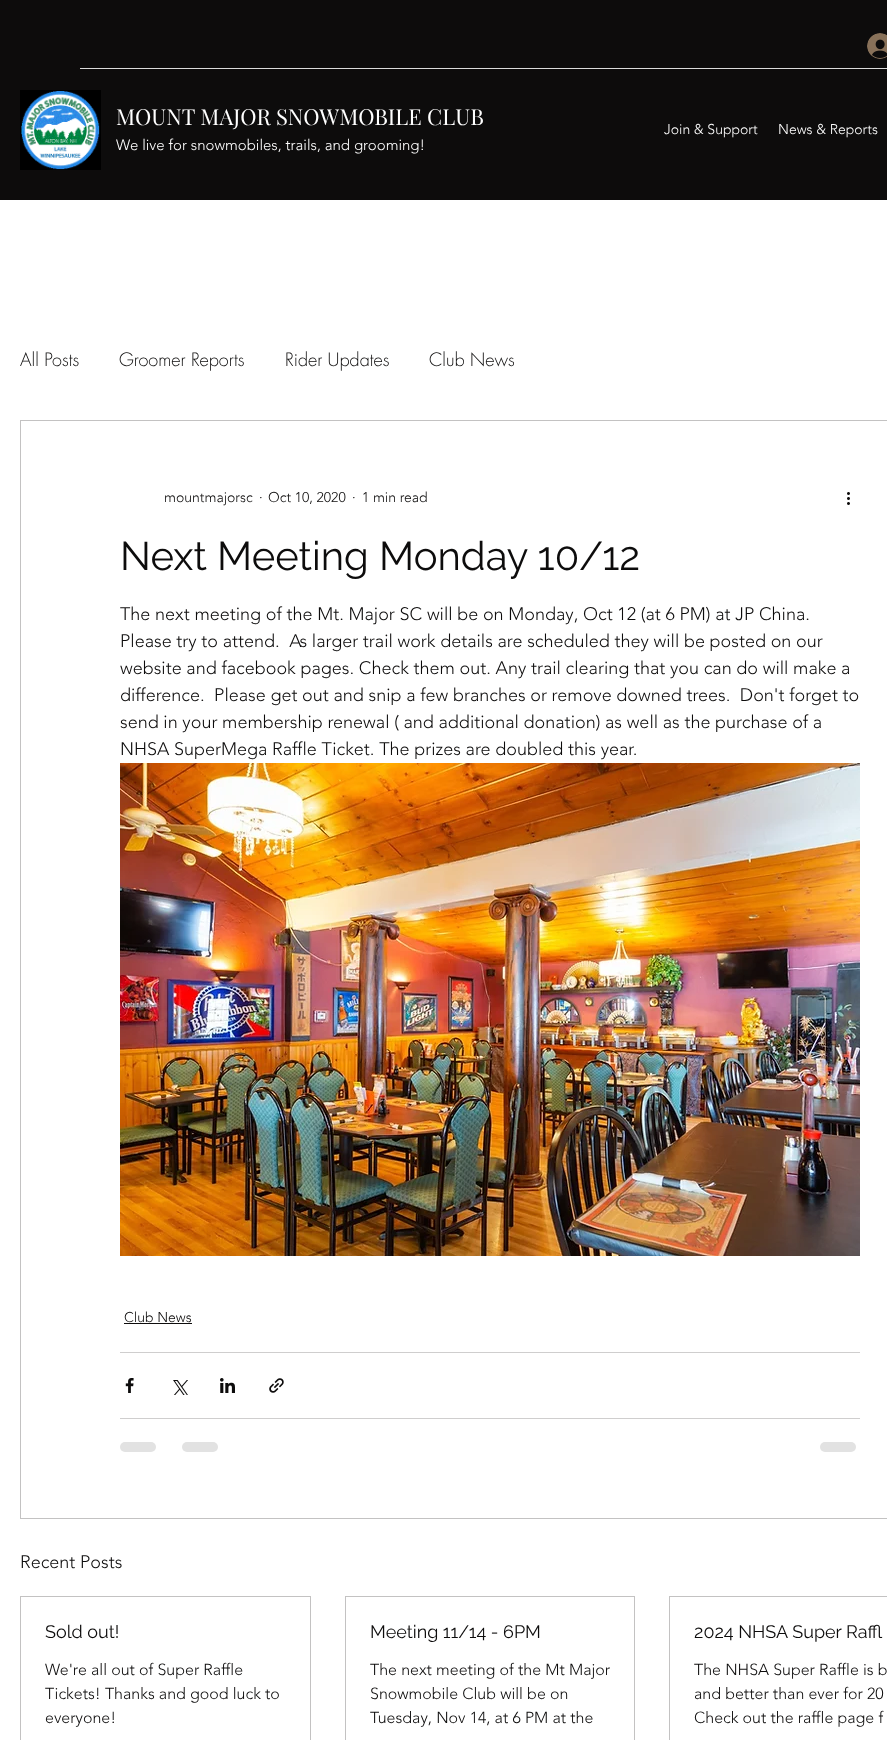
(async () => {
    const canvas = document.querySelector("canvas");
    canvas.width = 887;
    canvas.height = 1740;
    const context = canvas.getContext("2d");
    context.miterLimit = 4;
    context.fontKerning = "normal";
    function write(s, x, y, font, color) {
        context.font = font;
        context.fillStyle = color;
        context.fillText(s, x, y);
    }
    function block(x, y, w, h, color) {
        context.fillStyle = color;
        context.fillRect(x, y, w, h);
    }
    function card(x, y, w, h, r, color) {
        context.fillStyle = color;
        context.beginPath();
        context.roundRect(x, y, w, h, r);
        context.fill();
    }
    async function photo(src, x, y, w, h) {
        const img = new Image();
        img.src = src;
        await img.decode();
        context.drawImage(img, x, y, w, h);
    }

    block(0, 0, 887, 1740, "rgb(255, 255, 255)");
    block(0, 0, 887, 200, "rgb(13, 12, 12)");
    await photo("media/1.png", 867, 33, 20, 26);
    block(80, 68, 807, 1, "rgb(219, 219, 219)");
    await photo("media/2.png", 20, 90, 81, 80);
    write("MOUNT MAJOR SNOWMOBILE CLUB", 116, 125, "22px Playfair Display", "rgb(255, 255, 255)");
    write("We live for snowmobiles, trails, and grooming!", 116, 150, "300 15px 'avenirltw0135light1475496'", "rgb(255, 255, 255)");
    write("Join & Support", 664, 134, "300 14px 'avenirltw0135light1475496'", "rgb(255, 255, 255)");
    write("News & Reports", 778, 134, "300 14px 'avenirltw0135light1475496'", "rgb(255, 255, 255)");
    write("All Posts", 20, 366, "300 18px futura", "rgb(13, 12, 12)");
    write("Groomer Reports", 119, 366, "300 18px futura", "rgb(13, 12, 12)");
    write("Rider Updates", 285, 366, "300 18px futura", "rgb(13, 12, 12)");
    write("Club News", 429, 366, "300 18px futura", "rgb(13, 12, 12)");
    context.strokeStyle = "rgb(195, 194, 194)";
    context.strokeRect(20.5, 420.5, 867, 1098);
    write("mountmajorsc", 164, 502, "300 14px 'avenirltw0135light1475496'", "rgb(13, 12, 12)");
    write("·", 259, 502, "300 14px 'avenirltw0135light1475496'", "rgb(13, 12, 12)");
    write("Oct 10, 2020", 268, 502, "300 14px 'avenirltw0135light1475496'", "rgb(13, 12, 12)");
    write("·", 352, 502, "300 14px 'avenirltw0135light1475496'", "rgb(13, 12, 12)");
    write("1 min read", 362, 502, "300 14px 'avenirltw0135light1475496'", "rgb(13, 12, 12)");
    await photo("media/3.png", 847, 492, 3, 13);
    write("Next Meeting Monday 10/12", 120, 570, "40px Raleway", "rgb(13, 12, 12)");
    write("The next meeting of the Mt. Major SC will be on Monday, Oct 12 (at 6 PM) at JP China.", 120, 620, "300 18px 'avenirltw0135light1475496'", "rgb(13, 12, 12)");
    write("Please try to attend.  As larger trail work details are scheduled they will be posted on our", 120, 647, "300 18px 'avenirltw0135light1475496'", "rgb(13, 12, 12)");
    write("website and facebook pages. Check them out. Any trail clearing that you can do will make a", 120, 674, "300 18px 'avenirltw0135light1475496'", "rgb(13, 12, 12)");
    write("difference.  Please get out and snip a few branches or remove downed trees.  Don't forget to", 120, 701, "300 18px 'avenirltw0135light1475496'", "rgb(13, 12, 12)");
    write("send in your membership renewal ( and additional donation) as well as the purchase of a", 120, 728, "300 18px 'avenirltw0135light1475496'", "rgb(13, 12, 12)");
    write("NHSA SuperMega Raffle Ticket. The prizes are doubled this year.", 120, 755, "300 18px 'avenirltw0135light1475496'", "rgb(13, 12, 12)");
    await photo("media/4.png", 120, 763, 740, 493);
    write("Club News", 124, 1322, "300 14px 'avenirltw0135light1475496'", "rgb(13, 12, 12)");
    block(124, 1323, 68, 1, "rgb(13, 12, 12)");
    block(120, 1352, 740, 1, "rgb(207, 206, 206)");
    await photo("media/5.png", 125, 1378, 9, 15);
    await photo("media/6.png", 173, 1380, 15, 15);
    await photo("media/7.png", 220, 1378, 15, 15);
    await photo("media/8.png", 269, 1378, 15, 15);
    block(120, 1418, 740, 1, "rgb(207, 206, 206)");
    card(120, 1442, 36, 10, 5, "rgb(226, 226, 226)");
    card(182, 1442, 36, 10, 5, "rgb(226, 226, 226)");
    card(820, 1442, 36, 10, 5, "rgb(226, 226, 226)");
    write("Recent Posts", 20, 1568, "300 18px 'avenirltw0135light1475496'", "rgb(13, 12, 12)");
    context.strokeRect(20.5, 1596.5, 290, 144);
    write("Sold out!", 45, 1638, "18px Raleway", "rgb(13, 12, 12)");
    write("We're all out of Super Raffle", 45, 1675, "300 16px 'avenirltw0135light1475496'", "rgb(13, 12, 12)");
    write("Tickets! Thanks and good luck to", 45, 1699, "300 16px 'avenirltw0135light1475496'", "rgb(13, 12, 12)");
    write("everyone!", 45, 1723, "300 16px 'avenirltw0135light1475496'", "rgb(13, 12, 12)");
    context.strokeRect(345.5, 1596.5, 289, 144);
    write("Meeting 11/14 - 6PM", 370, 1638, "18px Raleway", "rgb(13, 12, 12)");
    write("The next meeting of the Mt Major", 370, 1675, "300 16px 'avenirltw0135light1475496'", "rgb(13, 12, 12)");
    write("Snowmobile Club will be on", 370, 1699, "300 16px 'avenirltw0135light1475496'", "rgb(13, 12, 12)");
    write("Tuesday, Nov 14, at 6 PM at the", 370, 1723, "300 16px 'avenirltw0135light1475496'", "rgb(13, 12, 12)");
    context.strokeRect(669.5, 1596.5, 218, 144);
    write("2024 NHSA Super Raffl", 694, 1638, "18px Raleway", "rgb(13, 12, 12)");
    write("The NHSA Super Raffle is b", 694, 1675, "300 16px 'avenirltw0135light1475496'", "rgb(13, 12, 12)");
    write("and better than ever for 20", 694, 1699, "300 16px 'avenirltw0135light1475496'", "rgb(13, 12, 12)");
    write("Check out the raffle page f", 694, 1723, "300 16px 'avenirltw0135light1475496'", "rgb(13, 12, 12)");
})();
